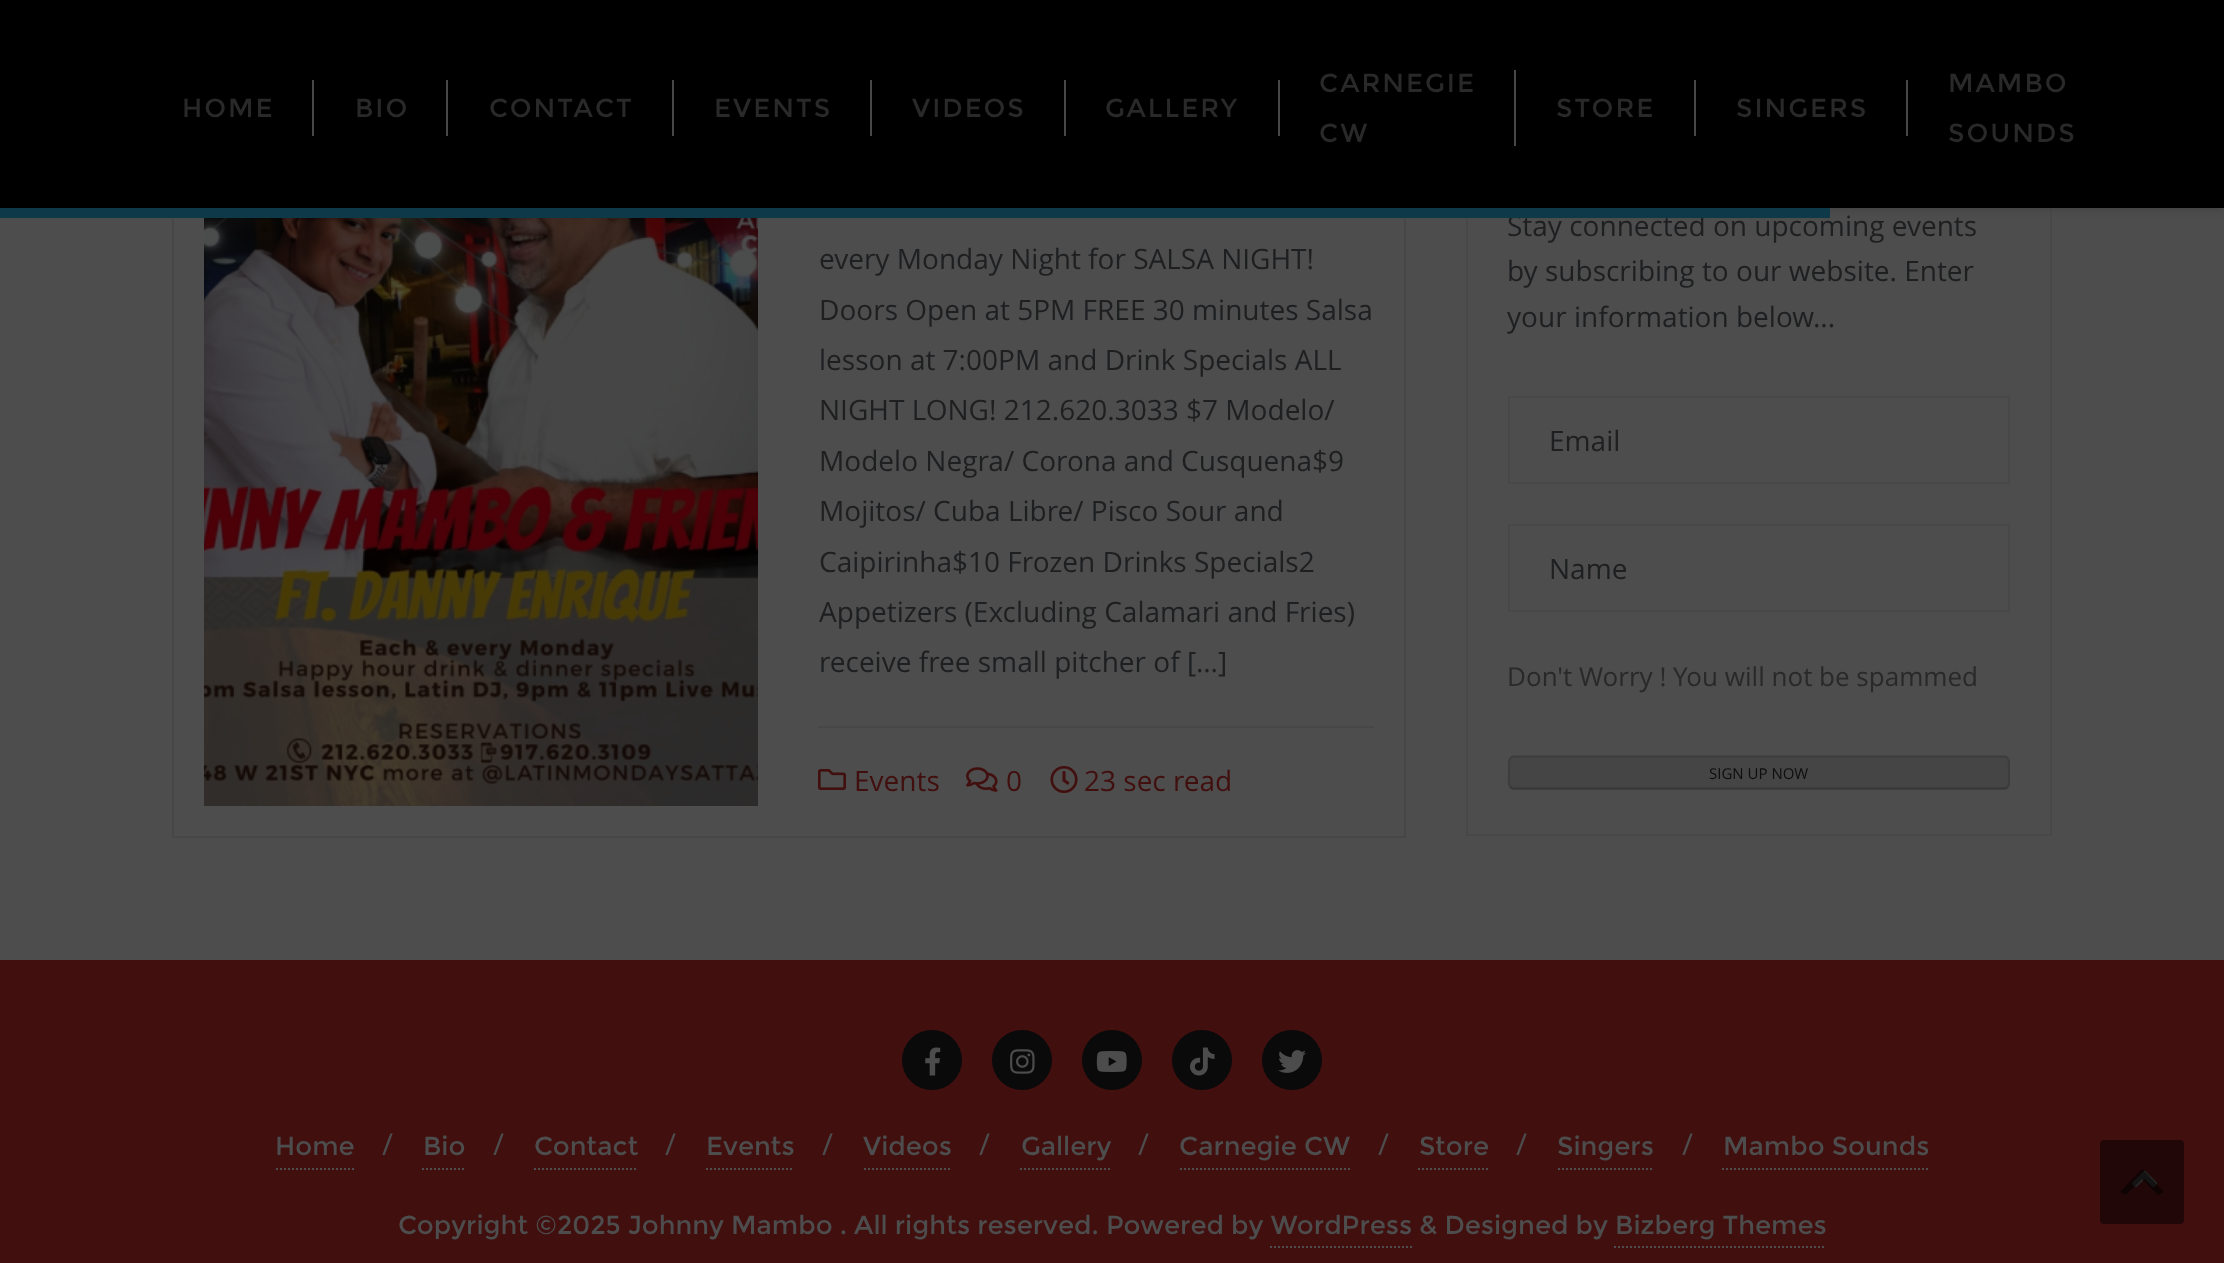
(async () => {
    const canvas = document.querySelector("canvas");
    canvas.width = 2224;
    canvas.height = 1263;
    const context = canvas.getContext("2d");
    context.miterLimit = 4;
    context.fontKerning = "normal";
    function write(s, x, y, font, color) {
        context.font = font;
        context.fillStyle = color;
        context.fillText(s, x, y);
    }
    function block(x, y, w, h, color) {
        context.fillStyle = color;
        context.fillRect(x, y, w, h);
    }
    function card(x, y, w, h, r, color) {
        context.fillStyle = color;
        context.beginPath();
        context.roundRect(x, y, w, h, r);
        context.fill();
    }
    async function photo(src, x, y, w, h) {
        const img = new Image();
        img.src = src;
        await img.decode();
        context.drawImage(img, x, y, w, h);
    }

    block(0, 0, 2224, 1263, "rgb(77, 77, 77)");
    context.strokeStyle = "rgb(71, 71, 71)";
    context.lineWidth = 2;
    context.strokeRect(173, -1, 1232, 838);
    await photo("media/1.png", 204, 218, 554, 588);
    context.strokeStyle = "rgb(72, 72, 72)";
    context.strokeRect(1467, 7, 584, 828);
    context.fillStyle = "rgb(61, 61, 61)";
    context.filter = "blur(5px)";
    context.beginPath();
    context.rect(0, 0, 2224, 208);
    context.fill();
    context.filter = "none";
    block(0, 0, 2224, 208, "rgb(0, 0, 0)");
    context.letterSpacing = "2px";
    write("HOME", 182, 117, "26px Montserrat", "rgb(41, 41, 41)");
    block(312, 80, 2, 56, "rgb(72, 72, 72)");
    write("BIO", 355, 117, "26px Montserrat", "rgb(41, 41, 41)");
    block(446, 80, 2, 56, "rgb(72, 72, 72)");
    write("CONTACT", 489, 117, "26px Montserrat", "rgb(41, 41, 41)");
    block(672, 80, 2, 56, "rgb(72, 72, 72)");
    write("EVENTS", 714, 117, "26px Montserrat", "rgb(41, 41, 41)");
    block(870, 80, 2, 56, "rgb(72, 72, 72)");
    write("VIDEOS", 912, 117, "26px Montserrat", "rgb(41, 41, 41)");
    block(1064, 80, 2, 56, "rgb(72, 72, 72)");
    write("GALLERY", 1105, 117, "26px Montserrat", "rgb(41, 41, 41)");
    block(1278, 80, 2, 56, "rgb(72, 72, 72)");
    write("CARNEGIE", 1319, 92, "26px Montserrat", "rgb(41, 41, 41)");
    block(1514, 70, 2, 76, "rgb(72, 72, 72)");
    write("CW", 1319, 142, "26px Montserrat", "rgb(41, 41, 41)");
    write("STORE", 1556, 117, "26px Montserrat", "rgb(41, 41, 41)");
    block(1694, 80, 2, 56, "rgb(72, 72, 72)");
    write("SINGERS", 1736, 117, "26px Montserrat", "rgb(41, 41, 41)");
    block(1906, 80, 2, 56, "rgb(72, 72, 72)");
    write("MAMBO", 1948, 92, "26px Montserrat", "rgb(41, 41, 41)");
    write("SOUNDS", 1948, 142, "26px Montserrat", "rgb(41, 41, 41)");
    context.letterSpacing = "0px";
    write("Stay connected on upcoming events", 1507, 236, "28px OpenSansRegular", "rgb(30, 31, 33)");
    block(0, 208, 1830, 10, "rgb(14, 57, 72)");
    write("every Monday Night for SALSA NIGHT!", 819, 269, "28px OpenSansRegular", "rgb(30, 31, 33)");
    write("Doors Open at 5PM FREE 30 minutes Salsa", 819, 320, "28px OpenSansRegular", "rgb(30, 31, 33)");
    write("lesson at 7:00PM and Drink Specials ALL", 819, 370, "28px OpenSansRegular", "rgb(30, 31, 33)");
    write("NIGHT LONG! 212.620.3033 $7 Modelo/", 819, 420, "28px OpenSansRegular", "rgb(30, 31, 33)");
    write("Modelo Negra/ Corona and Cusquena$9", 819, 471, "28px OpenSansRegular", "rgb(30, 31, 33)");
    write("Mojitos/ Cuba Libre/ Pisco Sour and", 819, 521, "28px OpenSansRegular", "rgb(30, 31, 33)");
    write("Caipirinha$10 Frozen Drinks Specials2", 819, 572, "28px OpenSansRegular", "rgb(30, 31, 33)");
    write("Appetizers (Excluding Calamari and Fries)", 819, 622, "28px OpenSansRegular", "rgb(30, 31, 33)");
    write("receive free small pitcher of […]", 819, 672, "28px OpenSansRegular", "rgb(30, 31, 33)");
    block(818, 726, 556, 2, "rgb(71, 71, 71)");
    await photo("media/2.png", 818, 769, 28, 21);
    write("Events", 854, 791, "28px OpenSansRegular", "rgb(66, 15, 15)");
    await photo("media/3.png", 966, 767, 32, 25);
    write("0", 1006, 791, "28px OpenSansRegular", "rgb(66, 15, 15)");
    await photo("media/4.png", 1050, 766, 28, 27);
    write("23 sec read", 1084, 791, "28px OpenSansRegular", "rgb(66, 15, 15)");
    write("by subscribing to our website. Enter", 1507, 281, "28px OpenSansRegular", "rgb(30, 31, 33)");
    write("your information below...", 1507, 327, "28px OpenSansRegular", "rgb(30, 31, 33)");
    context.strokeRect(1509, 397, 500, 86);
    write("Email", 1549, 451, "28px OpenSansRegular", "rgb(30, 31, 33)");
    context.strokeRect(1509, 525, 500, 86);
    write("Name", 1549, 579, "28px OpenSansRegular", "rgb(30, 31, 33)");
    write("Don't Worry ! You will not be spammed", 1507, 686, "26px OpenSansRegular", "rgb(41, 41, 41)");
    card(1508, 756, 502, 34, 6, "rgb(69, 69, 69)");
    context.beginPath();
    context.moveTo(2007.5, 787);
    context.bezierCurveTo(2006.5, 788, 2005.5, 788.5, 2004, 788.5);
    context.lineTo(1514, 788.5);
    context.bezierCurveTo(1512.5, 788.5, 1511.5, 788, 1510.5, 787);
    context.strokeStyle = "rgb(56, 56, 56)";
    context.stroke();
    context.beginPath();
    context.moveTo(1510.5, 787);
    context.bezierCurveTo(1508, 784.5, 1509, 779.5, 1509, 776);
    context.lineTo(1509, 765);
    context.bezierCurveTo(1509, 761.5, 1509, 756.5, 1514, 756.5);
    context.lineTo(2004, 756.5);
    context.bezierCurveTo(2009, 756.5, 2009, 761.5, 2009, 765);
    context.lineTo(2009, 776);
    context.bezierCurveTo(2009, 779.5, 2010, 784.5, 2007.5, 787);
    context.strokeStyle = "rgb(61, 61, 61)";
    context.stroke();
    write("SIGN UP NOW", 1709, 779, "15px OpenSansRegular", "rgb(14, 14, 14)");
    block(0, 960, 2224, 303, "rgb(66, 15, 15)");
    context.fillStyle = "rgb(10, 10, 10)";
    context.beginPath();
    context.arc(932, 1060, 30, 0, Math.PI * 2);
    context.fill();
    await photo("media/5.png", 925, 1047, 16, 29);
    context.beginPath();
    context.arc(1022, 1060, 30, 0, Math.PI * 2);
    context.fill();
    await photo("media/6.png", 1010, 1049, 25, 25);
    context.beginPath();
    context.arc(1112, 1060, 30, 0, Math.PI * 2);
    context.fill();
    await photo("media/7.png", 1096, 1051, 31, 21);
    context.beginPath();
    context.arc(1202, 1060, 30, 0, Math.PI * 2);
    context.fill();
    await photo("media/8.png", 1190, 1047, 25, 29);
    context.beginPath();
    context.arc(1292, 1060, 30, 0, Math.PI * 2);
    context.fill();
    await photo("media/9.png", 1278, 1050, 28, 23);
    context.beginPath();
    context.moveTo(276, 1169);
    context.lineTo(354, 1169);
    context.strokeStyle = "rgb(77, 77, 77)";
    context.setLineDash([2, 2]);
    context.stroke();
    write("Home", 275, 1155, "26px Montserrat", "rgb(77, 77, 77)");
    write("/", 382, 1155, "30px OpenSansRegular", "rgb(77, 77, 77)");
    context.beginPath();
    context.moveTo(422, 1169);
    context.lineTo(466, 1169);
    context.stroke();
    write("Bio", 423, 1155, "26px Montserrat", "rgb(77, 77, 77)");
    write("/", 493, 1155, "30px OpenSansRegular", "rgb(77, 77, 77)");
    context.beginPath();
    context.moveTo(534, 1169);
    context.lineTo(638, 1169);
    context.stroke();
    write("Contact", 534, 1155, "26px Montserrat", "rgb(77, 77, 77)");
    write("/", 665, 1155, "30px OpenSansRegular", "rgb(77, 77, 77)");
    context.beginPath();
    context.moveTo(706, 1169);
    context.lineTo(794, 1169);
    context.stroke();
    write("Events", 706, 1155, "26px Montserrat", "rgb(77, 77, 77)");
    write("/", 822, 1155, "30px OpenSansRegular", "rgb(77, 77, 77)");
    context.beginPath();
    context.moveTo(864, 1169);
    context.lineTo(952, 1169);
    context.stroke();
    write("Videos", 863, 1155, "26px Montserrat", "rgb(77, 77, 77)");
    write("/", 979, 1155, "30px OpenSansRegular", "rgb(77, 77, 77)");
    context.beginPath();
    context.moveTo(1020, 1169);
    context.lineTo(1112, 1169);
    context.stroke();
    write("Gallery", 1021, 1155, "26px Montserrat", "rgb(77, 77, 77)");
    write("/", 1138, 1155, "30px OpenSansRegular", "rgb(77, 77, 77)");
    context.beginPath();
    context.moveTo(1180, 1169);
    context.lineTo(1350, 1169);
    context.stroke();
    write("Carnegie CW", 1179, 1155, "26px Montserrat", "rgb(77, 77, 77)");
    write("/", 1378, 1155, "30px OpenSansRegular", "rgb(77, 77, 77)");
    context.beginPath();
    context.moveTo(1418, 1169);
    context.lineTo(1490, 1169);
    context.stroke();
    write("Store", 1419, 1155, "26px Montserrat", "rgb(77, 77, 77)");
    write("/", 1516, 1155, "30px OpenSansRegular", "rgb(77, 77, 77)");
    context.beginPath();
    context.moveTo(1558, 1169);
    context.lineTo(1654, 1169);
    context.stroke();
    write("Singers", 1557, 1155, "26px Montserrat", "rgb(77, 77, 77)");
    write("/", 1682, 1155, "30px OpenSansRegular", "rgb(77, 77, 77)");
    context.beginPath();
    context.moveTo(1722, 1169);
    context.lineTo(1928, 1169);
    context.stroke();
    write("Mambo Sounds", 1723, 1155, "26px Montserrat", "rgb(77, 77, 77)");
    write("Copyright ©2025 Johnny Mambo . All rights reserved. Powered by WordPress & Designed by Bizberg Themes", 398, 1234, "26px Montserrat", "rgb(77, 77, 77)");
    context.beginPath();
    context.moveTo(1270, 1247);
    context.lineTo(1412, 1247);
    context.stroke();
    context.beginPath();
    context.moveTo(1614, 1247);
    context.lineTo(1826, 1247);
    context.stroke();
    await photo("media/10.png", 2132, 1171, 26, 16);
    card(2100, 1140, 84, 84, 4, "rgba(0, 0, 0, 0.5)");
    context.beginPath();
    context.moveTo(2158, 1195);
    context.lineTo(2142, 1179);
    context.lineTo(2126, 1195);
    context.lineTo(2120, 1192);
    context.lineTo(2142, 1169);
    context.lineTo(2164, 1192);
    context.closePath();
    context.fill();
})();
